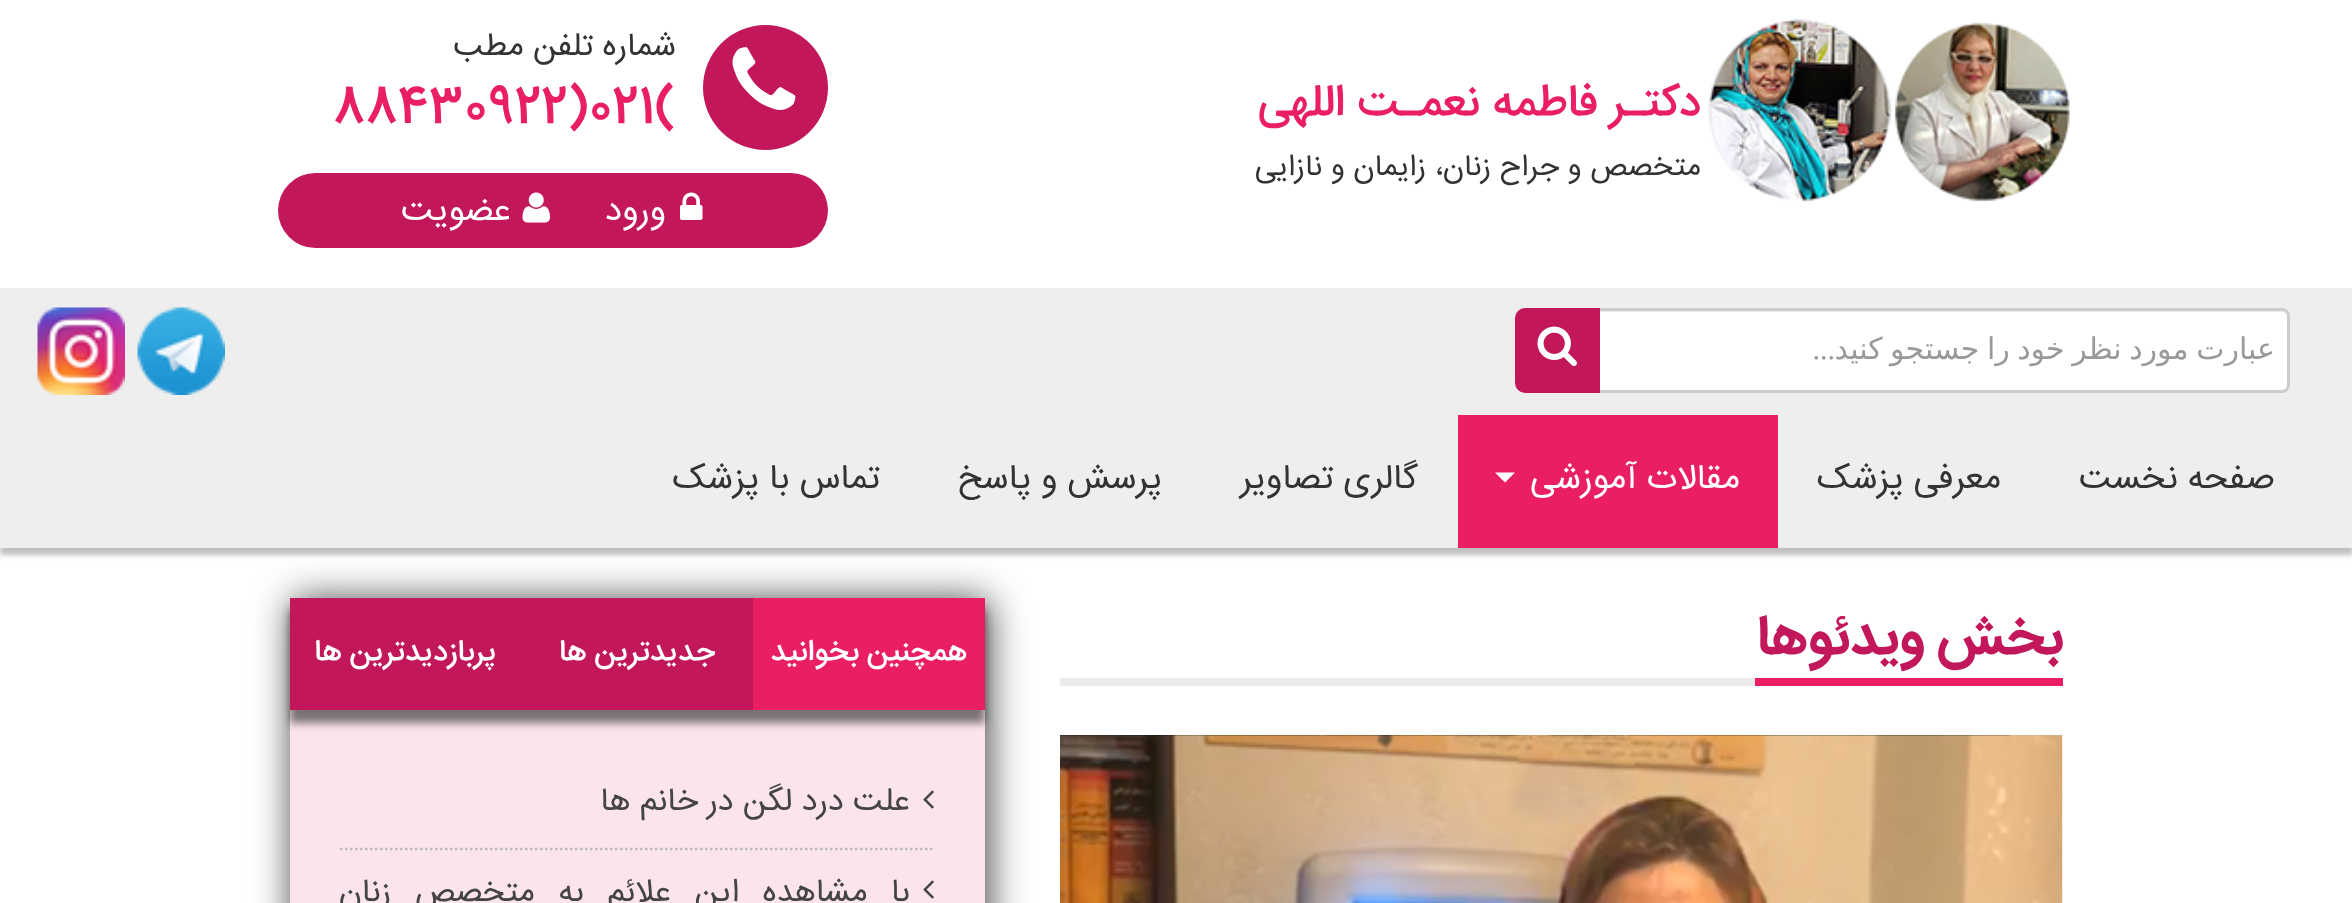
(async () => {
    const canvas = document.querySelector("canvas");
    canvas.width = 2352;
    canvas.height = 903;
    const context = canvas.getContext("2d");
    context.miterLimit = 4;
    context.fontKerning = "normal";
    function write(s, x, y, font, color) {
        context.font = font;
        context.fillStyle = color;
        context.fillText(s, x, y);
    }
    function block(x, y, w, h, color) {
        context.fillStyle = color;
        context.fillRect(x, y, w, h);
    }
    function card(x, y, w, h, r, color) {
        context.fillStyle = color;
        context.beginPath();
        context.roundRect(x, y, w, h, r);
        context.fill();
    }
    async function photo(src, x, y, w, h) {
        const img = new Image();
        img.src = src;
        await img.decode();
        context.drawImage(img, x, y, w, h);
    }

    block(0, 0, 2352, 903, "rgb(255, 255, 255)");
    await photo("media/1.png", 1708, 19, 362, 183);
    context.direction = "rtl";
    write("دکتـر فاطمه نعمـت اللهی", 1701, 115, "500 45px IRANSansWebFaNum", "rgb(233, 30, 99)");
    write("متخصص و جراح زنان، زایمان و نازایی", 1701, 175, "30px IRANSansWebFaNum", "rgb(51, 51, 51)");
    context.fillStyle = "rgb(194, 24, 91)";
    context.beginPath();
    context.arc(765.5, 87.5, 62.5, 0, Math.PI * 2);
    context.fill();
    await photo("media/2.png", 732, 47, 64, 63);
    write("شماره تلفن مطب", 676, 55, "32.5px IRANSansWebFaNum", "rgb(51, 51, 51)");
    context.direction = "ltr";
    write("021(", 589, 121, "500 50px IRANSansWebFaNum", "rgb(233, 30, 99)");
    write("88430922)", 333, 121, "500 50px IRANSansWebFaNum", "rgb(233, 30, 99)");
    card(278, 173, 550, 75, 37.5, "rgb(194, 24, 91)");
    await photo("media/3.png", 680, 192, 23, 28);
    context.direction = "rtl";
    write("ورود", 666, 220, "35px IRANSansWebFaNum", "rgb(255, 255, 255)");
    await photo("media/4.png", 522, 192, 28, 31);
    write("عضویت", 511, 220, "35px IRANSansWebFaNum", "rgb(255, 255, 255)");
    context.fillStyle = "rgba(0, 0, 0, 0.25)";
    context.filter = "blur(2.5px)";
    context.beginPath();
    context.rect(0, 295, 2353, 260);
    context.fill();
    context.filter = "none";
    context.fillStyle = "rgba(8, 8, 8, 0.79)";
    context.filter = "blur(19px)";
    context.beginPath();
    context.rect(293, 600, 695, 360);
    context.fill();
    context.filter = "none";
    block(0, 288, 2352, 260, "rgb(238, 238, 238)");
    card(1540, 308, 750, 85, 8, "rgb(255, 255, 255)");
    context.fillStyle = "rgb(236, 236, 236)";
    context.beginPath();
    context.moveTo(1548, 312);
    context.lineTo(2282, 312);
    context.bezierCurveTo(2285, 312, 2288, 315, 2288, 318);
    context.bezierCurveTo(2288, 314, 2288, 310, 2283, 310);
    context.lineTo(1548, 310);
    context.bezierCurveTo(1545, 310, 1543, 312, 1543, 315);
    context.bezierCurveTo(1544, 313, 1546, 312, 1548, 312);
    context.closePath();
    context.fill();
    context.beginPath();
    context.roundRect(1541.5, 309.5, 747, 82, 6.5);
    context.strokeStyle = "rgb(204, 204, 204)";
    context.lineWidth = 3;
    context.stroke();
    context.save();
    context.beginPath();
    context.rect(1555, 333, 720, 37);
    context.clip();
    context.wordSpacing = "-2px";
    write("عبارت مورد نظر خود را جستجو کنید", 2275, 359, "30px DejaVu Sans", "rgb(153, 153, 153)");
    context.restore();
    write("...", 1835, 359, "30px Liberation Serif", "rgb(153, 153, 153)");
    context.fillStyle = "rgb(194, 24, 91)";
    context.beginPath();
    context.roundRect(1515, 308, 85, 85, [10, 0, 0, 10]);
    context.fill();
    await photo("media/5.png", 1537, 326, 40, 40);
    await photo("media/6.png", 137, 307, 88, 88);
    await photo("media/7.png", 37, 307, 88, 88);
    write("صفحه نخست", 2275, 488, "35px IRANSansWebFaNum", "rgb(51, 51, 51)");
    write("معرفی پزشک", 2001, 488, "35px IRANSansWebFaNum", "rgb(51, 51, 51)");
    block(1458, 415, 320, 133, "rgb(233, 30, 99)");
    write("مقالات آموزشی", 1740, 488, "35px IRANSansWebFaNum", "rgb(255, 255, 255)");
    context.beginPath();
    context.moveTo(1495, 472.5);
    context.lineTo(1515, 472.5);
    context.lineTo(1505, 482.5);
    context.closePath();
    context.fill();
    write("گالری تصاویر", 1418, 488, "35px IRANSansWebFaNum", "rgb(51, 51, 51)");
    write("پرسش و پاسخ", 1162, 488, "35px IRANSansWebFaNum", "rgb(51, 51, 51)");
    write("تماس با پزشک", 880, 488, "35px IRANSansWebFaNum", "rgb(51, 51, 51)");
    block(1060, 678, 695, 8, "rgb(236, 236, 236)");
    block(1755, 678, 308, 8, "rgb(233, 30, 99)");
    write("بخش ویدئوها", 2064, 653, "bold 55px IRANSansWebFaNum", "rgb(194, 24, 91)");
    await photo("media/8.png", 1060, 735, 1003, 168);
    block(290, 710, 695, 193, "rgb(252, 228, 236)");
    context.fillStyle = "rgba(50, 50, 50, 0.65)";
    context.filter = "blur(4px)";
    context.beginPath();
    context.rect(290, 610, 695, 113);
    context.fill();
    context.filter = "none";
    block(290, 598, 463, 112, "rgb(194, 24, 91)");
    block(753, 598, 232, 112, "rgb(233, 30, 99)");
    write("همچنین بخوانید", 967, 660, "500 30px IRANSansWebFaNum", "rgb(255, 255, 255)");
    write("جدیدترین ها", 715, 660, "500 30px IRANSansWebFaNum", "rgb(255, 255, 255)");
    write("پربازدیدترین ها", 496, 660, "500 30px IRANSansWebFaNum", "rgb(255, 255, 255)");
    context.beginPath();
    context.moveTo(340, 849);
    context.lineTo(935, 849);
    context.strokeStyle = "rgb(187, 187, 187)";
    context.lineWidth = 2.5;
    context.setLineDash([2.5, 2.5]);
    context.stroke();
    await photo("media/9.png", 923, 790, 11, 19);
    write("علت درد لگن در خانم ها", 910, 810, "32.5px IRANSansWebFaNum", "rgb(68, 68, 68)");
    await photo("media/9.png", 923, 880, 11, 19);
    context.wordSpacing = "14.25px";
    write("با مشاهده این علائم به متخصص زنان", 910, 901, "32.5px IRANSansWebFaNum", "rgb(68, 68, 68)");
})();
